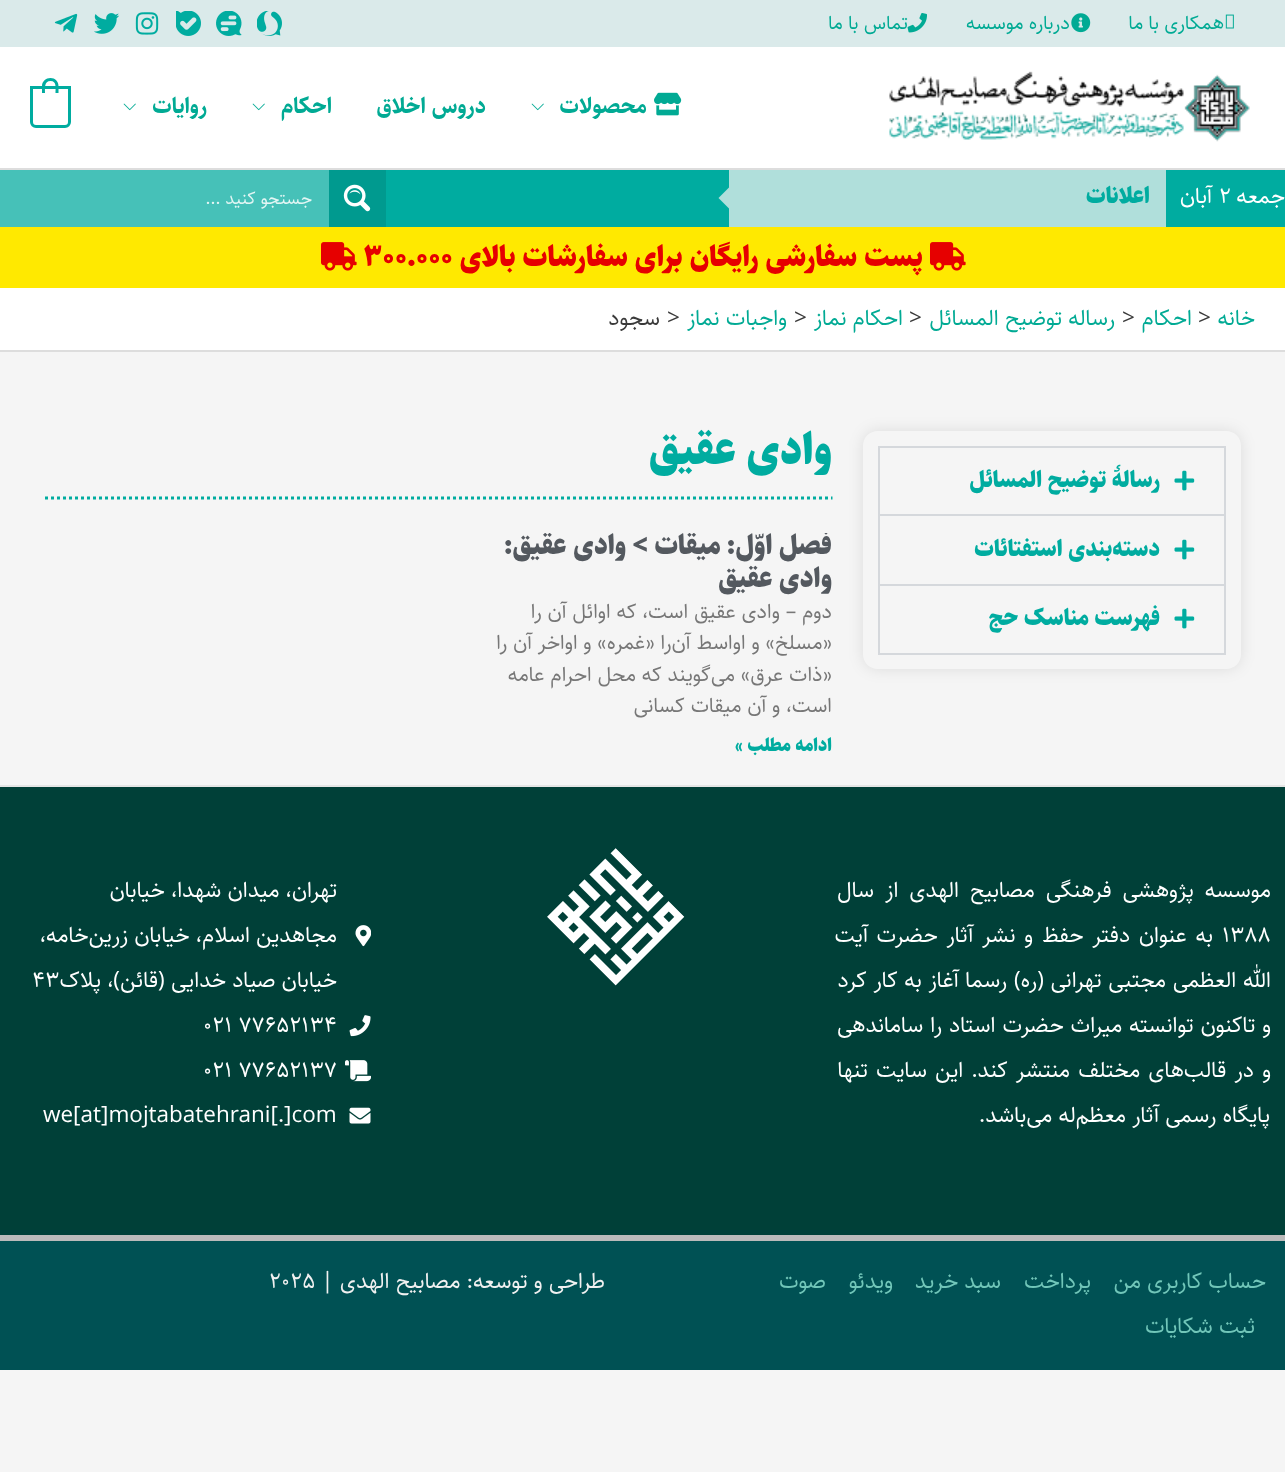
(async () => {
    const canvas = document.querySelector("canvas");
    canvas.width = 1285;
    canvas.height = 1472;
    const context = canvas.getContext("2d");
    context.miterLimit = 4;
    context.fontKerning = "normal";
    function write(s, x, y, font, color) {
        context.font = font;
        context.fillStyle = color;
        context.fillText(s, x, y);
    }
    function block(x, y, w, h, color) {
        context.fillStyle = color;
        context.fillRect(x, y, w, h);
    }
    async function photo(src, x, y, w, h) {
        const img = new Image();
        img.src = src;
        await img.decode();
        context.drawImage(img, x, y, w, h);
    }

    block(0, 0, 1285, 1472, "rgb(245, 245, 245)");
    block(0, 0, 1285, 47, "rgb(218, 234, 234)");
    await photo("media/1.png", 1225, 14, 9, 15);
    context.direction = "rtl";
    write("همکاری با ما", 1224, 29, "19.5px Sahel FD", "rgb(1, 170, 148)");
    await photo("media/2.png", 1071, 13, 20, 20);
    write("درباره موسسه", 1070, 29, "19.5px Sahel FD", "rgb(1, 170, 148)");
    await photo("media/3.png", 907, 13, 20, 20);
    write("تماس با ما", 908, 29, "19.5px Sahel FD", "rgb(1, 170, 148)");
    await photo("media/4.png", 257, 11, 25, 25);
    await photo("media/5.png", 216, 11, 26, 25);
    await photo("media/6.png", 176, 11, 25, 25);
    await photo("media/7.png", 135, 12, 24, 23);
    await photo("media/8.png", 94, 13, 26, 21);
    await photo("media/9.png", 54, 13, 24, 20);
    block(0, 47, 1285, 121, "rgb(255, 255, 255)");
    block(0, 168, 1285, 2, "rgb(221, 221, 221)");
    await photo("media/10.png", 889, 71, 361, 71);
    await photo("media/11.png", 654, 92, 28, 24);
    write("محصولات", 647, 113, "bold 22.5px Sahel FD", "rgb(1, 170, 148)");
    await photo("media/12.png", 531, 103, 13, 8);
    write("دروس اخلاق", 486, 113, "bold 22.5px Sahel FD", "rgb(1, 170, 148)");
    write("احکام", 332, 113, "bold 22.5px Sahel FD", "rgb(1, 170, 148)");
    await photo("media/12.png", 252, 103, 13, 8);
    write("روایات", 207, 113, "bold 22.5px Sahel FD", "rgb(1, 170, 148)");
    await photo("media/12.png", 123, 103, 13, 8);
    context.beginPath();
    context.roundRect(31.5, 87.5, 38, 39, [0, 0, 4.5, 4.5]);
    context.strokeStyle = "rgb(0, 172, 160)";
    context.lineWidth = 3;
    context.stroke();
    context.fillStyle = "rgb(0, 172, 160)";
    context.beginPath();
    context.moveTo(50.5, 78);
    context.bezierCurveTo(55, 78, 58.5, 81.5, 58.5, 86);
    context.lineTo(58.5, 93);
    context.lineTo(42, 93);
    context.lineTo(42, 86);
    context.bezierCurveTo(42, 81.5, 46, 78, 50.5, 78);
    context.closePath();
    context.moveTo(50.5, 81);
    context.bezierCurveTo(57, 81, 55.5, 88.5, 55.5, 93);
    context.lineTo(45, 93);
    context.bezierCurveTo(45, 88.5, 44, 81, 50.5, 81);
    context.closePath();
    context.fill("evenodd");
    block(386, 170, 899, 57, "rgb(0, 172, 160)");
    write("جمعه", 1285, 203, "22.5px Sahel FD", "rgb(255, 255, 255)");
    context.direction = "ltr";
    write("۲", 1219, 203, "22.5px Sahel FD", "rgb(255, 255, 255)");
    context.direction = "rtl";
    write("آبان", 1212, 203, "22.5px Sahel FD", "rgb(255, 255, 255)");
    block(729, 170, 437, 57, "rgb(176, 223, 219)");
    write("اعلانات", 1150, 203, "900 22.5px Sahel FD", "rgb(0, 172, 160)");
    context.fillStyle = "rgb(176, 223, 219)";
    context.beginPath();
    context.moveTo(729, 187.5);
    context.lineTo(729, 208.5);
    context.lineTo(718.5, 198);
    context.closePath();
    context.fill();
    block(0, 170, 329, 57, "rgb(70, 193, 184)");
    block(329, 170, 57, 57, "rgb(0, 154, 143)");
    await photo("media/13.png", 343, 184, 28, 28);
    write("جستجو کنید ...", 312, 204, "18px Sahel FD", "rgb(227, 246, 244)");
    block(0, 227, 1285, 61, "rgb(255, 233, 0)");
    await photo("media/14.png", 930, 242, 36, 29);
    write("پست سفارشی رایگان برای سفارشات بالای", 923, 266, "900 28.5px Sahel FD", "rgb(230, 0, 0)");
    context.direction = "ltr";
    write("۳۰۰.۰۰۰", 363, 266, "900 28.5px Sahel FD", "rgb(230, 0, 0)");
    await photo("media/14.png", 321, 242, 36, 29);
    block(0, 288, 1285, 62, "rgb(255, 255, 255)");
    block(0, 350, 1285, 2, "rgb(221, 221, 221)");
    context.direction = "rtl";
    write("خانه", 1255, 325, "22.5px Sahel FD", "rgb(1, 170, 148)");
    context.direction = "ltr";
    write(">", 1198, 325, "22.5px Sahel FD", "rgb(58, 58, 58)");
    context.direction = "rtl";
    write("احکام", 1192, 325, "22.5px Sahel FD", "rgb(1, 170, 148)");
    context.direction = "ltr";
    write(">", 1122, 325, "22.5px Sahel FD", "rgb(58, 58, 58)");
    context.direction = "rtl";
    write("رساله توضیح المسائل", 1115, 325, "22.5px Sahel FD", "rgb(1, 170, 148)");
    context.direction = "ltr";
    write(">", 909, 325, "22.5px Sahel FD", "rgb(58, 58, 58)");
    context.direction = "rtl";
    write("احکام نماز", 903, 325, "22.5px Sahel FD", "rgb(1, 170, 148)");
    context.direction = "ltr";
    write(">", 794, 325, "22.5px Sahel FD", "rgb(58, 58, 58)");
    context.direction = "rtl";
    write("واجبات نماز", 787, 325, "22.5px Sahel FD", "rgb(1, 170, 148)");
    context.direction = "ltr";
    write(">", 667, 325, "22.5px Sahel FD", "rgb(58, 58, 58)");
    context.direction = "rtl";
    write("سجود", 660, 325, "22.5px Sahel FD", "rgb(58, 58, 58)");
    context.save();
    context.beginPath();
    context.moveTo(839, 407);
    context.lineTo(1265, 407);
    context.lineTo(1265, 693);
    context.lineTo(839, 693);
    context.closePath();
    context.moveTo(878, 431);
    context.lineTo(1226, 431);
    context.bezierCurveTo(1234.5, 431, 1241, 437.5, 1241, 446);
    context.lineTo(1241, 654);
    context.bezierCurveTo(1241, 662.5, 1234.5, 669, 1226, 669);
    context.lineTo(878, 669);
    context.bezierCurveTo(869.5, 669, 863, 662.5, 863, 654);
    context.lineTo(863, 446);
    context.bezierCurveTo(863, 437.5, 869.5, 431, 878, 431);
    context.closePath();
    context.clip("evenodd");
    context.fillStyle = "rgba(0, 0, 0, 0.1)";
    context.filter = "blur(7.5px)";
    context.beginPath();
    context.roundRect(863, 431, 378, 238, 15);
    context.fill();
    context.filter = "none";
    context.restore();
    context.strokeStyle = "rgb(213, 216, 220)";
    context.lineWidth = 2;
    context.strokeRect(879, 447, 346, 68);
    await photo("media/15.png", 1174, 470, 21, 21);
    write("رسالۀ توضیح المسائل", 1160, 487, "900 22.5px Sahel FD", "rgb(0, 172, 160)");
    block(1224, 516, 2, 69, "rgb(213, 216, 220)");
    block(878, 584, 348, 2, "rgb(213, 216, 220)");
    block(878, 516, 2, 69, "rgb(213, 216, 220)");
    await photo("media/15.png", 1174, 539, 21, 21);
    write("دسته‌بندی استفتائات", 1160, 556, "900 22.5px Sahel FD", "rgb(0, 172, 160)");
    block(1224, 585, 2, 69, "rgb(213, 216, 220)");
    block(878, 653, 348, 2, "rgb(213, 216, 220)");
    block(878, 585, 2, 69, "rgb(213, 216, 220)");
    await photo("media/15.png", 1174, 608, 21, 21);
    write("فهرست مناسک حج", 1160, 625, "900 22.5px Sahel FD", "rgb(0, 172, 160)");
    write("وادی عقیق", 832, 464, "900 43.5px Sahel FD", "rgb(0, 172, 160)");
    context.beginPath();
    context.moveTo(45, 498);
    context.lineTo(832.5, 498);
    context.strokeStyle = "rgb(0, 172, 160)";
    context.lineWidth = 3;
    context.setLineDash([3, 3]);
    context.stroke();
    context.save();
    context.beginPath();
    context.rect(461, 533, 372, 237);
    context.clip();
    write("فصل اوّل: میقات > وادی عقیق:", 832, 554, "900 27px Sahel FD", "rgb(84, 89, 95)");
    context.restore();
    write("وادی عقیق", 832, 587, "900 27px Sahel FD", "rgb(84, 89, 95)");
    write("دوم – وادی عقیق است، که اوائل آن را", 832, 618, "21px Sahel FD", "rgb(119, 119, 119)");
    write("«مسلخ» و اواسط آن‌را «غمره» و اواخر آن را", 832, 649, "21px Sahel FD", "rgb(119, 119, 119)");
    write("«ذات عرق» می‌گویند که محل احرام عامه", 832, 681, "21px Sahel FD", "rgb(119, 119, 119)");
    write("است، و آن میقات کسانی", 832, 712, "21px Sahel FD", "rgb(119, 119, 119)");
    write("ادامه مطلب »", 832, 751, "900 18px Sahel FD", "rgb(0, 172, 160)");
    block(0, 787, 1285, 448, "rgb(0, 64, 56)");
    block(0, 785, 1285, 2, "rgb(229, 229, 229)");
    context.wordSpacing = "4.75px";
    write("موسسه پژوهشی فرهنگی مصابیح الهدی از سال", 1271, 897, "22.5px Sahel FD", "rgb(255, 255, 255)");
    context.wordSpacing = "0px";
    context.direction = "ltr";
    write("1388", 1222, 942, "22.5px Sahel FD", "rgb(255, 255, 255)");
    context.wordSpacing = "2.5px";
    context.direction = "rtl";
    write("به عنوان دفتر حفظ و نشر آثار حضرت آیت", 1213, 942, "22.5px Sahel FD", "rgb(255, 255, 255)");
    context.wordSpacing = "0.5px";
    write("الله العظمی مجتبی تهرانی (ره) رسما آغاز به کار کرد", 1271, 987, "22.5px Sahel FD", "rgb(255, 255, 255)");
    context.wordSpacing = "0.75px";
    write("و تاکنون توانسته میراث حضرت استاد را ساماندهی", 1271, 1032, "22.5px Sahel FD", "rgb(255, 255, 255)");
    context.wordSpacing = "2px";
    write("و در قالب‌های مختلف منتشر کند. این سایت تنها", 1271, 1077, "22.5px Sahel FD", "rgb(255, 255, 255)");
    context.wordSpacing = "0px";
    write("پایگاه رسمی آثار معظم‌له می‌باشد.", 1270, 1122, "22.5px Sahel FD", "rgb(255, 255, 255)");
    await photo("media/16.png", 547, 848, 138, 138);
    await photo("media/17.png", 355, 925, 16, 22);
    write("تهران، میدان شهدا، خیابان", 337, 897, "22.5px Sahel FD", "rgb(255, 255, 255)");
    write("مجاهدین اسلام، خیابان زرین‌خامه،", 337, 942, "22.5px Sahel FD", "rgb(255, 255, 255)");
    write("خیابان صیاد خدایی (قائن)، پلاک", 337, 987, "22.5px Sahel FD", "rgb(255, 255, 255)");
    context.direction = "ltr";
    write("43", 32, 987, "22.5px Sahel FD", "rgb(255, 255, 255)");
    await photo("media/18.png", 349, 1015, 22, 22);
    write("021 77652134", 203, 1032, "22.5px Sahel FD", "rgb(255, 255, 255)");
    await photo("media/19.png", 345, 1060, 26, 22);
    write("021 77652137", 203, 1077, "22.5px Sahel FD", "rgb(255, 255, 255)");
    await photo("media/20.png", 349, 1107, 22, 17);
    write("we[at]mojtabatehrani[.]com", 43, 1122, "22.5px Sahel FD", "rgb(255, 255, 255)");
    block(0, 1241, 1285, 129, "rgb(0, 81, 84)");
    block(0, 1235, 1285, 6, "rgb(186, 186, 186)");
    context.direction = "rtl";
    write("حساب کاربری من", 1266, 1288, "22.5px Sahel FD", "rgb(113, 198, 185)");
    write("پرداخت", 1091, 1288, "22.5px Sahel FD", "rgb(113, 198, 185)");
    write("سبد خرید", 1001, 1288, "22.5px Sahel FD", "rgb(113, 198, 185)");
    write("ویدئو", 893, 1288, "22.5px Sahel FD", "rgb(113, 198, 185)");
    write("صوت", 826, 1288, "22.5px Sahel FD", "rgb(113, 198, 185)");
    write("ثبت شکایات", 1255, 1333, "22.5px Sahel FD", "rgb(113, 198, 185)");
    write("طراحی و توسعه: مصابیح الهدی |", 605, 1288, "22.5px Sahel FD", "rgb(241, 241, 241)");
    context.direction = "ltr";
    write("2025", 269, 1288, "22.5px Sahel FD", "rgb(241, 241, 241)");
})();
